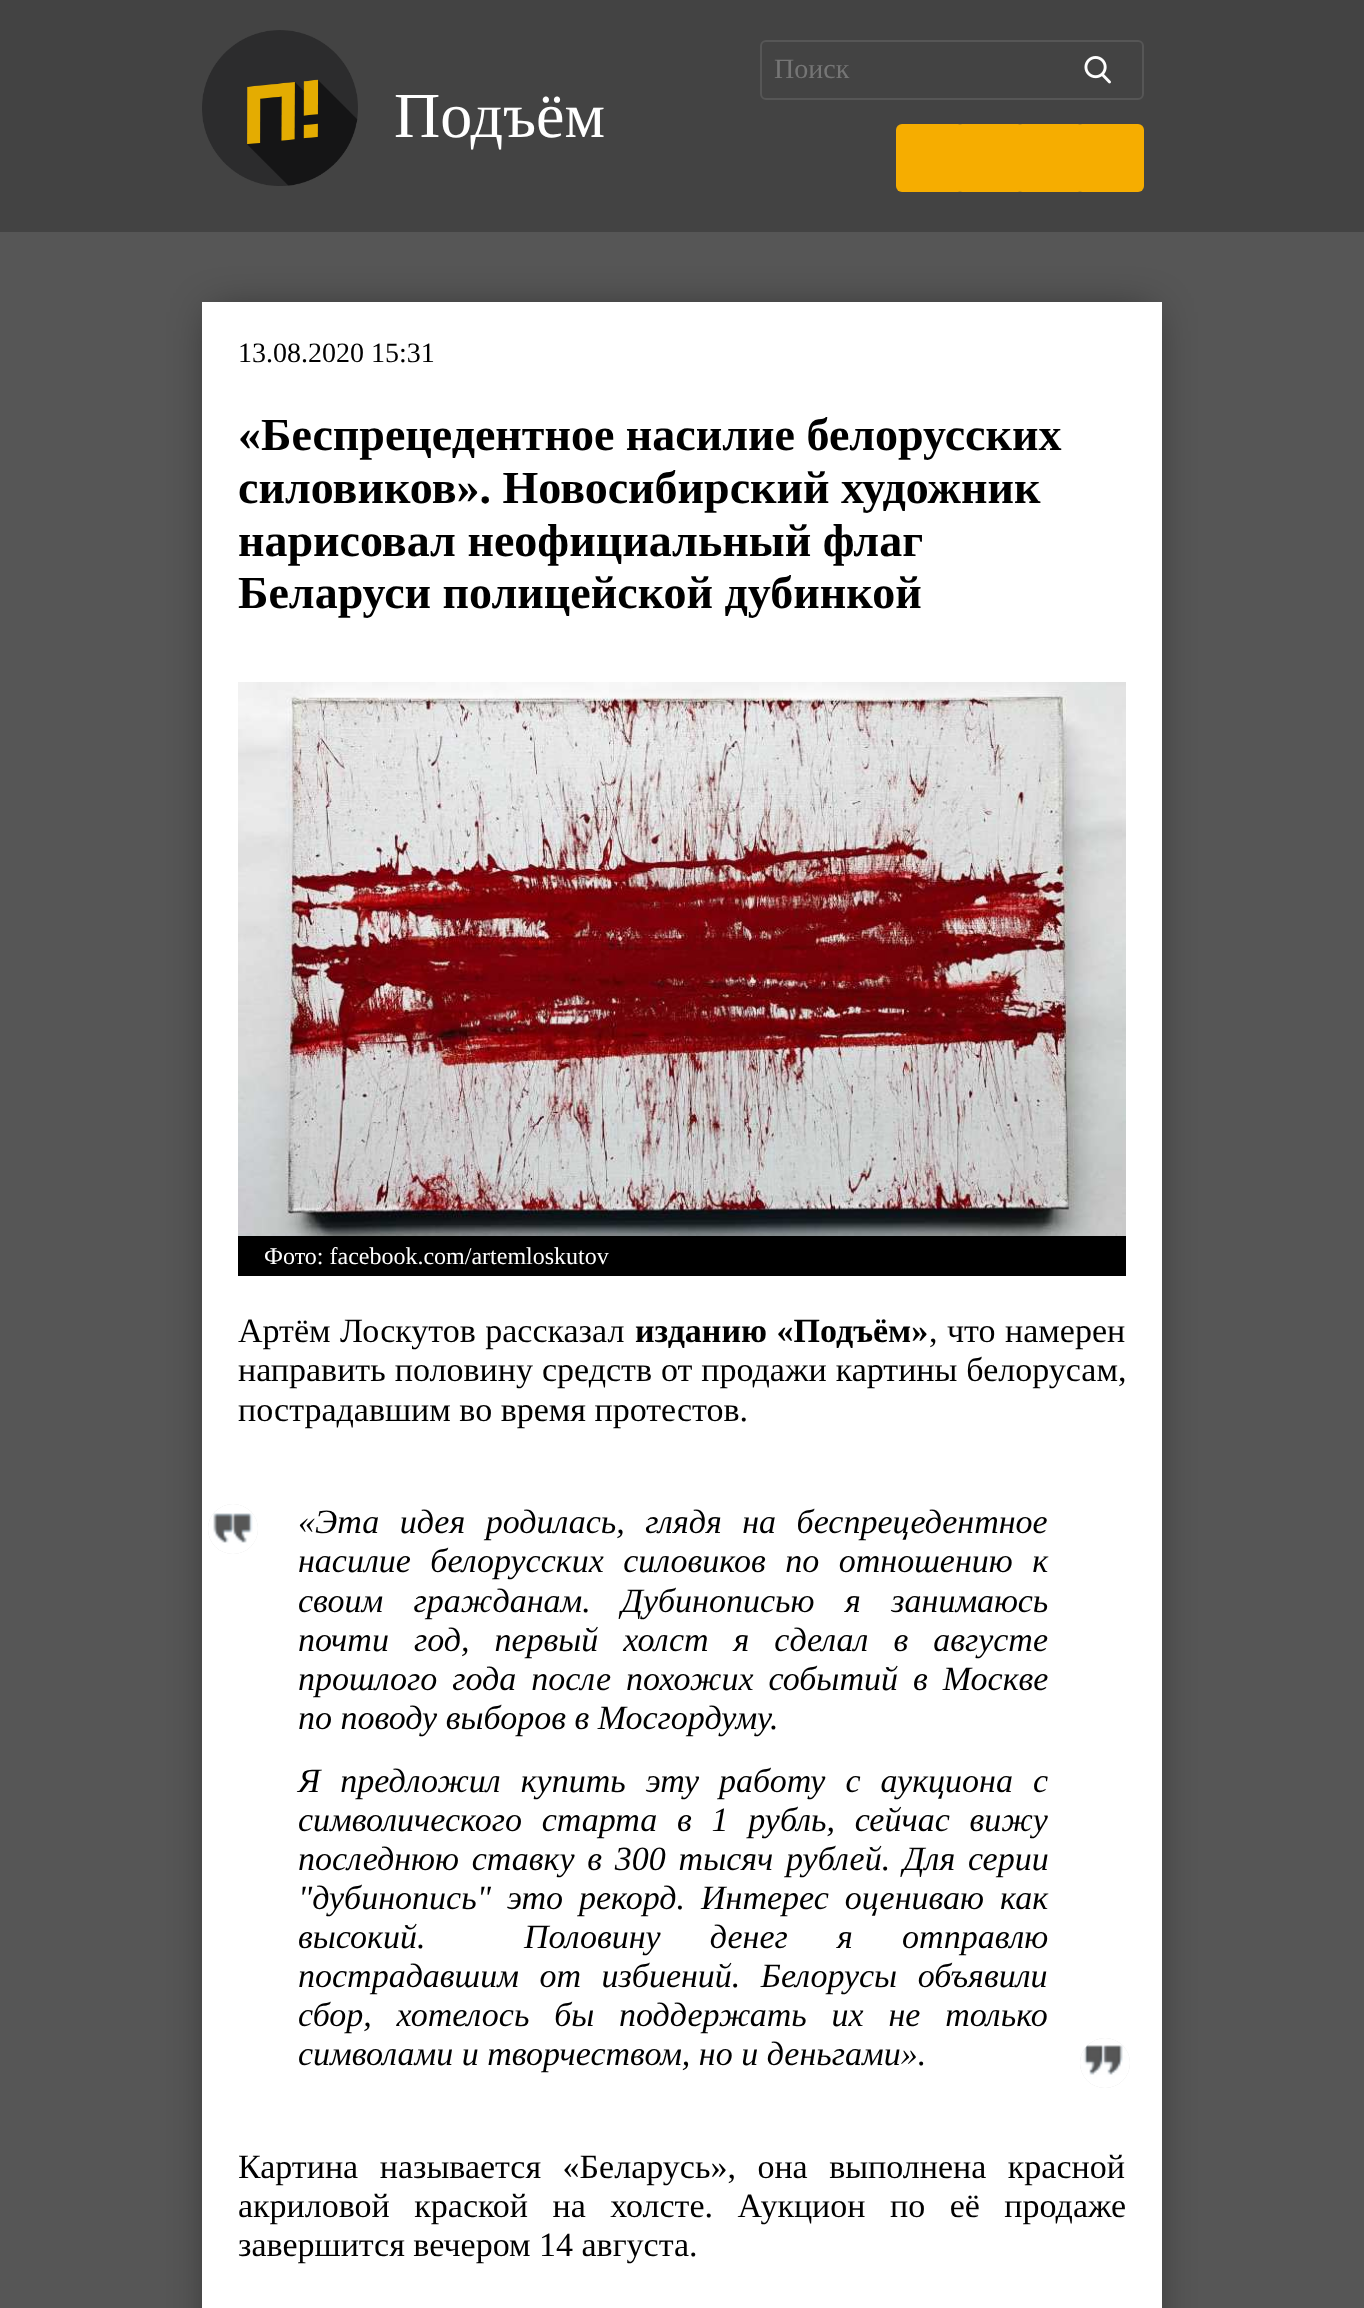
(async () => {
    const canvas = document.querySelector("canvas");
    canvas.width = 1364;
    canvas.height = 2308;
    const context = canvas.getContext("2d");
    context.miterLimit = 4;
    context.fontKerning = "normal";
    function write(s, x, y, font, color) {
        context.font = font;
        context.fillStyle = color;
        context.fillText(s, x, y);
    }
    function block(x, y, w, h, color) {
        context.fillStyle = color;
        context.fillRect(x, y, w, h);
    }
    function card(x, y, w, h, r, color) {
        context.fillStyle = color;
        context.beginPath();
        context.roundRect(x, y, w, h, r);
        context.fill();
    }
    async function photo(src, x, y, w, h) {
        const img = new Image();
        img.src = src;
        await img.decode();
        context.drawImage(img, x, y, w, h);
    }

    block(0, 0, 1364, 2308, "rgb(86, 86, 86)");
    block(0, 0, 1364, 232, "rgb(67, 67, 67)");
    context.beginPath();
    context.roundRect(761, 41, 382, 58, 5);
    context.strokeStyle = "rgb(86, 86, 86)";
    context.lineWidth = 2;
    context.stroke();
    write("Поиск", 774, 78, "28px Liberation Serif", "rgb(117, 117, 117)");
    await photo("media/1.png", 1084, 56, 27, 28);
    card(896, 124, 68, 68, 6, "rgb(246, 173, 0)");
    card(956, 124, 68, 68, 6, "rgb(246, 173, 0)");
    card(1016, 124, 68, 68, 6, "rgb(246, 173, 0)");
    card(1076, 124, 68, 68, 6, "rgb(246, 173, 0)");
    await photo("media/2.png", 202, 30, 156, 156);
    write("Подъём", 394, 137, "64px Liberation Serif", "rgb(255, 255, 255)");
    context.fillStyle = "rgba(0, 0, 0, 0.49)";
    context.filter = "blur(20px)";
    context.beginPath();
    context.rect(212, 312, 940, 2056);
    context.fill();
    context.filter = "none";
    block(202, 302, 960, 2006, "rgb(255, 255, 255)");
    write("13.08.2020 15:31", 238, 362, "28px Liberation Serif", "rgb(0, 0, 0)");
    write("«Беспрецедентное насилие белорусских", 238, 450, "bold 46px Liberation Serif", "rgb(0, 0, 0)");
    write("силовиков». Новосибирский художник", 238, 503, "bold 46px Liberation Serif", "rgb(0, 0, 0)");
    write("нарисовал неофициальный флаг", 238, 556, "bold 46px Liberation Serif", "rgb(0, 0, 0)");
    write("Беларуси полицейской дубинкой", 238, 608, "bold 46px Liberation Serif", "rgb(0, 0, 0)");
    await photo("media/3.png", 238, 682, 888, 554);
    block(238, 1236, 888, 40, "rgb(0, 0, 0)");
    write("Фото: facebook.com/artemloskutov", 264, 1264, "24px Liberation Serif", "rgb(255, 255, 255)");
    context.wordSpacing = "1px";
    write("Артём Лоскутов рассказал", 238, 1342, "34px Liberation Serif", "rgb(0, 0, 0)");
    write("изданию «Подъём»", 635, 1342, "bold 34px Liberation Serif", "rgb(0, 0, 0)");
    write(", что намерен", 929, 1342, "34px Liberation Serif", "rgb(0, 0, 0)");
    context.wordSpacing = "0.5px";
    write("направить половину средств от продажи картины белорусам,", 238, 1381, "34px Liberation Serif", "rgb(0, 0, 0)");
    context.wordSpacing = "0px";
    write("пострадавшим во время протестов.", 238, 1421, "34px Liberation Serif", "rgb(0, 0, 0)");
    context.fillStyle = "rgb(221, 221, 221)";
    context.beginPath();
    context.arc(233, 1529, 25, 0, Math.PI * 2);
    context.fill();
    await photo("media/4.png", 208, 1504, 50, 50);
    context.wordSpacing = "12px";
    write("«Эта идея родилась, глядя на беспрецедентное", 298, 1533, "italic 34px Liberation Serif", "rgb(0, 0, 0)");
    context.wordSpacing = "11px";
    write("насилие белорусских силовиков по отношению к", 298, 1572, "italic 34px Liberation Serif", "rgb(0, 0, 0)");
    context.wordSpacing = "22px";
    write("своим гражданам. Дубинописью я занимаюсь", 298, 1612, "italic 34px Liberation Serif", "rgb(0, 0, 0)");
    context.wordSpacing = "16.5px";
    write("почти год, первый холст я сделал в августе", 298, 1651, "italic 34px Liberation Serif", "rgb(0, 0, 0)");
    context.wordSpacing = "6.5px";
    write("прошлого года после похожих событий в Москве", 298, 1690, "italic 34px Liberation Serif", "rgb(0, 0, 0)");
    context.wordSpacing = "0px";
    write("по поводу выборов в Мосгордуму.", 298, 1729, "italic 34px Liberation Serif", "rgb(0, 0, 0)");
    context.wordSpacing = "11.5px";
    write("Я предложил купить эту работу с аукциона с", 298, 1792, "italic 34px Liberation Serif", "rgb(0, 0, 0)");
    context.wordSpacing = "11.25px";
    write("символического старта в 1 рубль, сейчас вижу", 298, 1831, "italic 34px Liberation Serif", "rgb(0, 0, 0)");
    context.wordSpacing = "4.25px";
    write("последнюю ставку в 300 тысяч рублей. Для серии", 298, 1870, "italic 34px Liberation Serif", "rgb(0, 0, 0)");
    context.wordSpacing = "7.5px";
    write("\"дубинопись\" это рекорд. Интерес оцениваю как", 298, 1909, "italic 34px Liberation Serif", "rgb(0, 0, 0)");
    context.wordSpacing = "40.75px";
    write("высокий.  Половину денег я отправлю", 298, 1948, "italic 34px Liberation Serif", "rgb(0, 0, 0)");
    context.wordSpacing = "12px";
    write("пострадавшим от избиений. Белорусы объявили", 298, 1987, "italic 34px Liberation Serif", "rgb(0, 0, 0)");
    context.wordSpacing = "16.25px";
    write("сбор, хотелось бы поддержать их не только", 298, 2026, "italic 34px Liberation Serif", "rgb(0, 0, 0)");
    context.wordSpacing = "0px";
    write("символами и творчеством, но и деньгами».", 298, 2065, "italic 34px Liberation Serif", "rgb(0, 0, 0)");
    context.fillStyle = "rgb(221, 221, 221)";
    context.beginPath();
    context.arc(1105, 2063, 25, 0, Math.PI * 2);
    context.fill();
    await photo("media/5.png", 1080, 2038, 50, 50);
    context.wordSpacing = "13px";
    write("Картина называется «Беларусь», она выполнена красной", 238, 2178, "34px Liberation Serif", "rgb(0, 0, 0)");
    context.wordSpacing = "16px";
    write("акриловой краской на холсте. Аукцион по её продаже", 238, 2217, "34px Liberation Serif", "rgb(0, 0, 0)");
    context.wordSpacing = "0px";
    write("завершится вечером 14 августа.", 238, 2256, "34px Liberation Serif", "rgb(0, 0, 0)");
})();
